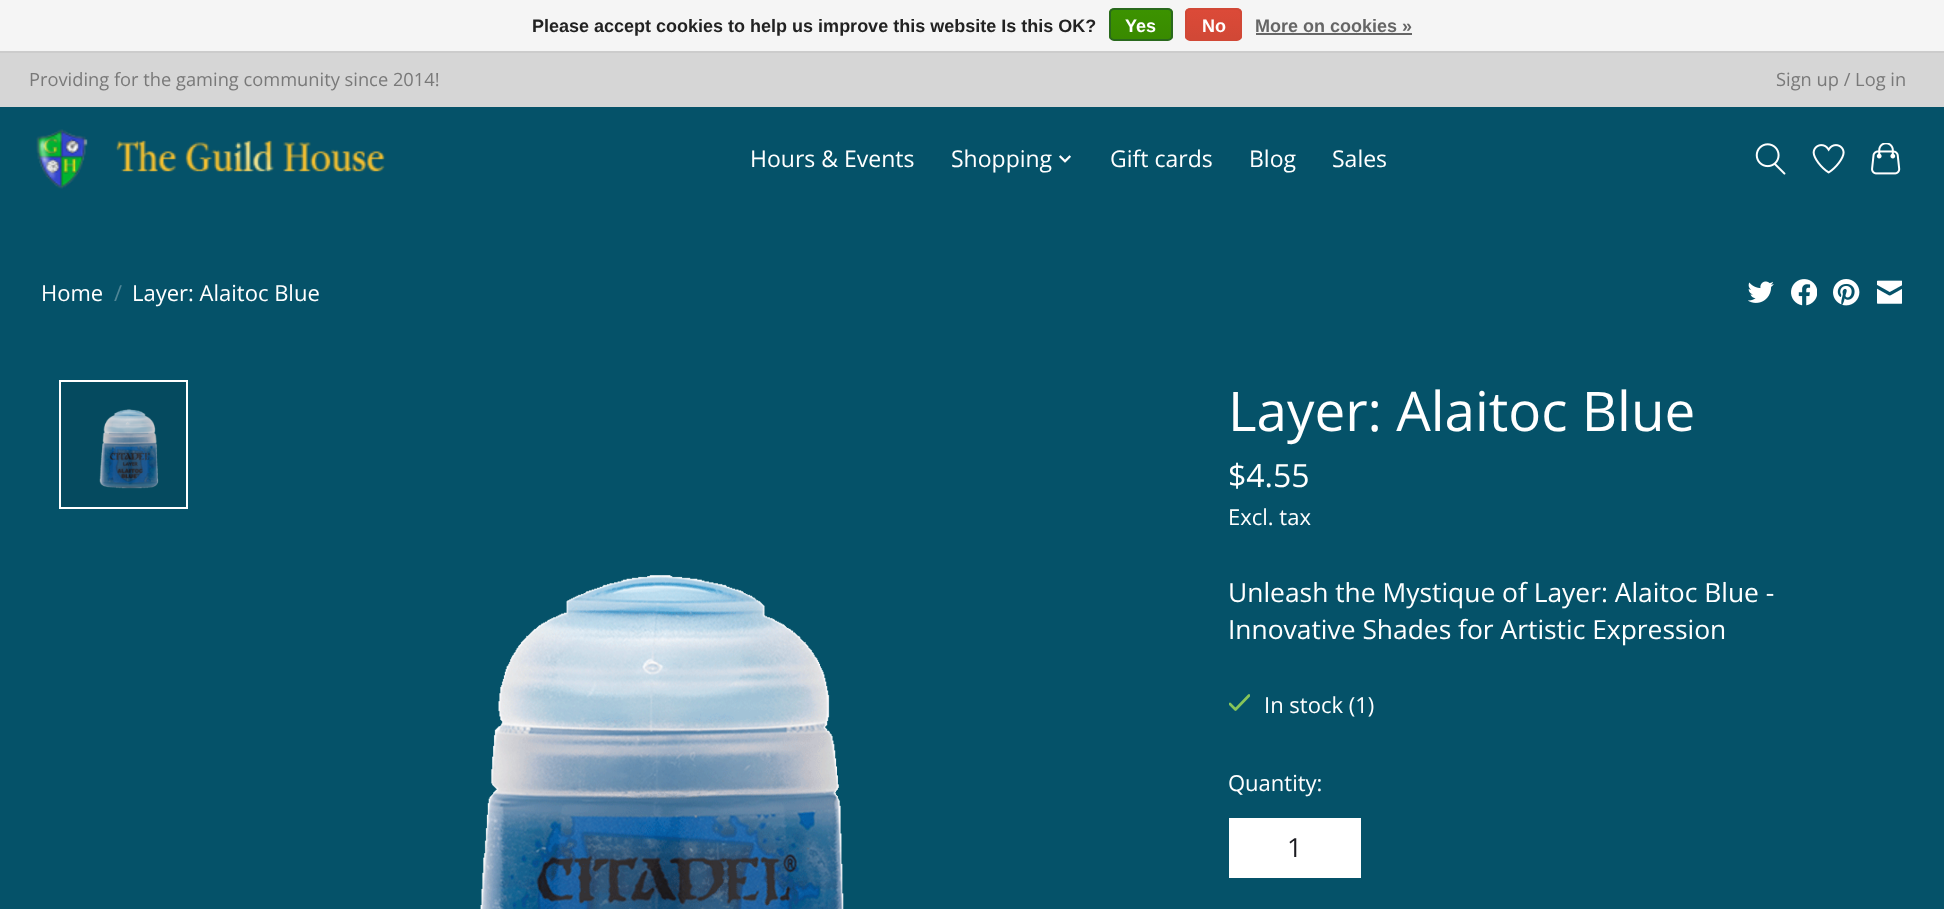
(async () => {
    const canvas = document.querySelector("canvas");
    canvas.width = 1944;
    canvas.height = 909;
    const context = canvas.getContext("2d");
    context.miterLimit = 4;
    context.fontKerning = "normal";
    function write(s, x, y, font, color) {
        context.font = font;
        context.fillStyle = color;
        context.fillText(s, x, y);
    }
    function block(x, y, w, h, color) {
        context.fillStyle = color;
        context.fillRect(x, y, w, h);
    }
    async function photo(src, x, y, w, h) {
        const img = new Image();
        img.src = src;
        await img.decode();
        context.drawImage(img, x, y, w, h);
    }
    let gradient;

    block(0, 0, 1944, 909, "rgb(5, 82, 105)");
    block(61, 382, 125, 125, "rgb(5, 74, 95)");
    block(0, 0, 1944, 51, "rgb(245, 245, 245)");
    block(0, 51, 1944, 2, "rgb(204, 204, 204)");
    write("Please accept cookies to help us improve this website Is this OK?", 532, 32, "bold 18px Liberation Sans", "rgb(34, 34, 34)");
    context.save();
    context.beginPath();
    context.roundRect(1109, 8, 64, 33, 5);
    context.clip();
    gradient = context.createLinearGradient(1141, 9, 1141, 39);
    gradient.addColorStop(0, "rgb(60, 147, 0)");
    gradient.addColorStop(1, "rgb(57, 138, 0)");
    context.fillStyle = gradient;
    context.fillRect(1109, 9, 64, 30);
    context.restore();
    context.beginPath();
    context.roundRect(1110, 9, 62, 31, 4);
    context.strokeStyle = "rgb(41, 105, 29)";
    context.lineWidth = 2;
    context.stroke();
    write("Yes", 1125, 32, "bold 18px Liberation Sans", "rgb(255, 255, 255)");
    context.save();
    context.beginPath();
    context.roundRect(1185, 8, 57, 33, 5);
    context.clip();
    gradient = context.createLinearGradient(1214, 9, 1214, 39);
    gradient.addColorStop(0, "rgb(220, 74, 56)");
    gradient.addColorStop(1, "rgb(209, 72, 54)");
    context.fillStyle = gradient;
    context.fillRect(1185, 9, 57, 30);
    context.restore();
    context.beginPath();
    context.roundRect(1186, 9, 55, 31, 4);
    context.strokeStyle = "rgb(209, 72, 54)";
    context.stroke();
    write("No", 1202, 32, "bold 18px Liberation Sans", "rgb(255, 255, 255)");
    write("More on cookies »", 1255, 32, "bold 18px Liberation Sans", "rgb(102, 102, 102)");
    block(1256, 33, 156, 2, "rgb(102, 102, 102)");
    block(0, 53, 1944, 54, "rgb(214, 214, 214)");
    write("Providing for the gaming community since 2014!", 29, 86, "18.3px Open Sans", "rgb(121, 121, 121)");
    write("Sign up / Log in", 1776, 86, "18.3px Open Sans", "rgb(121, 121, 121)");
    await photo("media/1.png", 36, 129, 349, 60);
    write("Hours & Events", 750, 167, "23px Open Sans", "rgb(255, 255, 255)");
    write("Shopping", 951, 167, "23px Open Sans", "rgb(255, 255, 255)");
    await photo("media/2.png", 1059, 155, 12, 8);
    write("Gift cards", 1110, 167, "23px Open Sans", "rgb(255, 255, 255)");
    write("Blog", 1249, 167, "23px Open Sans", "rgb(255, 255, 255)");
    write("Sales", 1332, 167, "23px Open Sans", "rgb(255, 255, 255)");
    await photo("media/3.png", 1755, 143, 31, 32);
    await photo("media/4.png", 1812, 144, 33, 30);
    await photo("media/5.png", 1871, 143, 30, 32);
    write("Home", 41, 301, "22px Open Sans", "rgb(255, 255, 255)");
    write("/", 114, 301, "22px Open Sans", "rgb(80, 134, 150)");
    write("Layer: Alaitoc Blue", 132, 301, "22px Open Sans", "rgb(255, 255, 255)");
    await photo("media/6.png", 1748, 281, 26, 22);
    await photo("media/7.png", 1791, 279, 26, 27);
    await photo("media/8.png", 1833, 279, 27, 27);
    await photo("media/9.png", 1877, 280, 25, 24);
    await photo("media/10.png", 99, 409, 60, 80);
    context.strokeStyle = "rgb(255, 255, 255)";
    context.strokeRect(60, 381, 127, 127);
    await photo("media/11.png", 480, 575, 364, 334);
    write("Layer: Alaitoc Blue", 1228, 431, "54.75px Open Sans", "rgb(255, 255, 255)");
    write("$4.55", 1228, 487, "32px Open Sans", "rgb(255, 255, 255)");
    write("Excl. tax", 1228, 525, "22px Open Sans", "rgb(255, 255, 255)");
    write("Unleash the Mystique of Layer: Alaitoc Blue -", 1228, 602, "26.4px Open Sans", "rgb(255, 255, 255)");
    write("Innovative Shades for Artistic Expression", 1228, 639, "26.4px Open Sans", "rgb(255, 255, 255)");
    context.save();
    context.beginPath();
    context.rect(1229, 692, 21, 21);
    context.clip();
    context.beginPath();
    context.moveTo(1230, 704);
    context.lineTo(1235.5, 709.5);
    context.lineTo(1249, 695.5);
    context.strokeStyle = "rgb(136, 197, 89)";
    context.lineWidth = 2.7;
    context.lineCap = "round";
    context.lineJoin = "round";
    context.stroke();
    context.restore();
    write("In stock (1)", 1264, 713, "22px Open Sans", "rgb(255, 255, 255)");
    write("Quantity:", 1228, 791, "22px Open Sans", "rgb(255, 255, 255)");
    block(1229, 818, 132, 60, "rgb(255, 255, 255)");
    write("1", 1287, 857, "26.4px Open Sans", "rgb(28, 28, 33)");
})();
